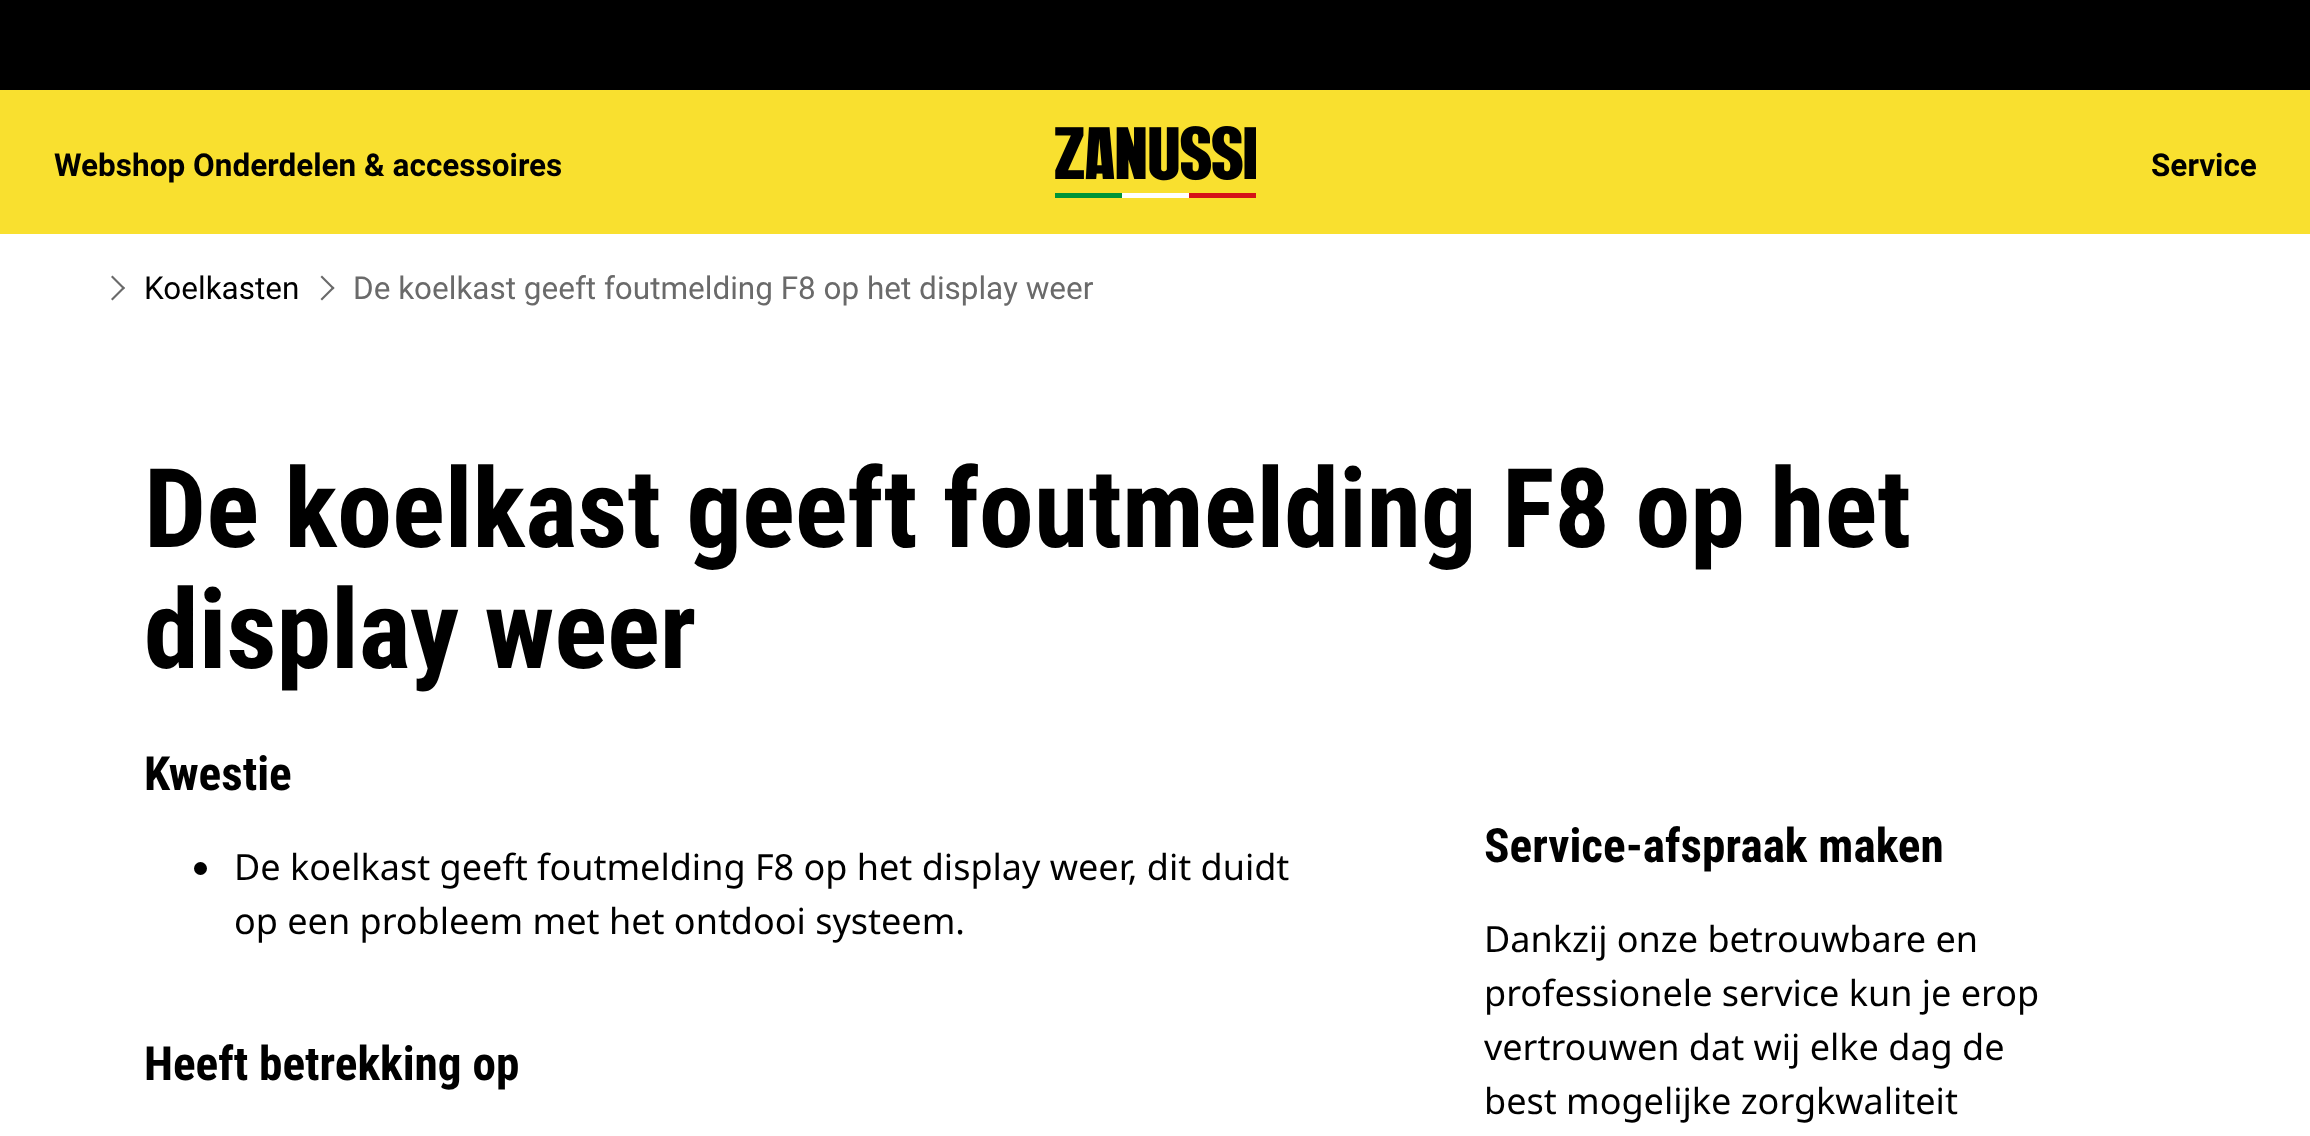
(async () => {
    const canvas = document.querySelector("canvas");
    canvas.width = 2310;
    canvas.height = 1136;
    const context = canvas.getContext("2d");
    context.miterLimit = 4;
    context.fontKerning = "normal";
    function write(s, x, y, font, color) {
        context.font = font;
        context.fillStyle = color;
        context.fillText(s, x, y);
    }
    function block(x, y, w, h, color) {
        context.fillStyle = color;
        context.fillRect(x, y, w, h);
    }
    async function photo(src, x, y, w, h) {
        const img = new Image();
        img.src = src;
        await img.decode();
        context.drawImage(img, x, y, w, h);
    }

    block(0, 0, 2310, 1136, "rgb(255, 255, 255)");
    block(0, 0, 2310, 90, "rgb(0, 0, 0)");
    block(0, 90, 2310, 144, "rgb(249, 224, 47)");
    write("Webshop Onderdelen & accessoires", 54, 176, "bold 31.5px Roboto", "rgb(0, 0, 0)");
    await photo("media/1.png", 1055, 126, 201, 72);
    write("Service", 2151, 176, "bold 31.5px Roboto", "rgb(0, 0, 0)");
    context.fillStyle = "rgb(106, 106, 106)";
    context.beginPath();
    context.moveTo(112.5, 275.5);
    context.lineTo(125, 288);
    context.lineTo(123.5, 289.5);
    context.lineTo(111, 277);
    context.closePath();
    context.fill();
    context.beginPath();
    context.moveTo(123.5, 286.5);
    context.lineTo(125, 288);
    context.lineTo(112.5, 300.5);
    context.lineTo(111, 299);
    context.closePath();
    context.fill();
    write("Koelkasten", 144, 299, "31.5px Roboto", "rgb(0, 0, 0)");
    context.fillStyle = "rgb(106, 106, 106)";
    context.beginPath();
    context.moveTo(322, 275.5);
    context.lineTo(334.5, 288);
    context.lineTo(333, 289.5);
    context.lineTo(320.5, 277);
    context.closePath();
    context.fill();
    context.beginPath();
    context.moveTo(333, 286.5);
    context.lineTo(334.5, 288);
    context.lineTo(322, 300.5);
    context.lineTo(320.5, 299);
    context.closePath();
    context.fill();
    write("De koelkast geeft foutmelding F8 op het display weer", 353, 299, "31.5px Roboto", "rgb(106, 106, 106)");
    write("De koelkast geeft foutmelding F8 op het", 144, 547, "bold 110.25px Roboto Condensed", "rgb(0, 0, 0)");
    write("display weer", 144, 668, "bold 110.25px Roboto Condensed", "rgb(0, 0, 0)");
    write("Kwestie", 144, 790, "bold 47.25px Roboto Condensed", "rgb(0, 0, 0)");
    context.beginPath();
    context.arc(200.5, 868.5, 6.5, 0, Math.PI * 2);
    context.fill();
    write("De koelkast geeft foutmelding F8 op het display weer, dit duidt", 234, 880, "36px Noto Sans", "rgb(0, 0, 0)");
    write("op een probleem met het ontdooi systeem.", 234, 934, "36px Noto Sans", "rgb(0, 0, 0)");
    write("Heeft betrekking op", 144, 1080, "bold 47.25px Roboto Condensed", "rgb(0, 0, 0)");
    write("Service-afspraak maken", 1484, 862, "bold 47.25px Roboto Condensed", "rgb(0, 0, 0)");
    write("Dankzij onze betrouwbare en", 1484, 952, "36px Noto Sans", "rgb(0, 0, 0)");
    write("professionele service kun je erop", 1484, 1006, "36px Noto Sans", "rgb(0, 0, 0)");
    write("vertrouwen dat wij elke dag de", 1484, 1060, "36px Noto Sans", "rgb(0, 0, 0)");
    write("best mogelijke zorgkwaliteit", 1484, 1114, "36px Noto Sans", "rgb(0, 0, 0)");
})();
